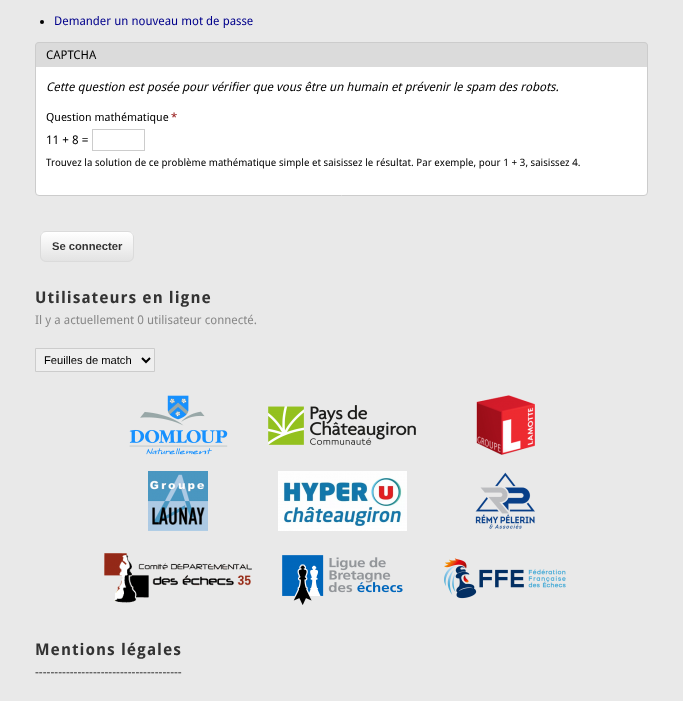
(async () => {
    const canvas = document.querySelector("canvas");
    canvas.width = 683;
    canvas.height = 701;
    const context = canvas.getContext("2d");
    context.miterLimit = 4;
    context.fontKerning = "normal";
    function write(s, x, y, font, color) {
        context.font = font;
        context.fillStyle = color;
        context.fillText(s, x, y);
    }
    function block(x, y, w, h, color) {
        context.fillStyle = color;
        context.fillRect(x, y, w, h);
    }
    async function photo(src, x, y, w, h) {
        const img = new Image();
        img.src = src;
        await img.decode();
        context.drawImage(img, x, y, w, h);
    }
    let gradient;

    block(0, 0, 683, 701, "rgb(233, 233, 233)");
    context.fillStyle = "rgb(0, 0, 0)";
    context.beginPath();
    context.arc(42, 22, 2, 0, Math.PI * 2);
    context.fill();
    write("Demander un nouveau mot de passe", 54, 25, "12px Droid Sans", "rgb(0, 0, 139)");
    context.fillStyle = "rgb(255, 255, 255)";
    context.beginPath();
    context.roundRect(35.5, 53.5, 612, 142, 3.5);
    context.fill();
    context.strokeStyle = "rgb(204, 204, 204)";
    context.stroke();
    context.fillStyle = "rgb(219, 219, 219)";
    context.beginPath();
    context.roundRect(35, 42, 613, 25, [4, 4, 0, 0]);
    context.fill();
    context.fillStyle = "rgb(204, 204, 204)";
    context.beginPath();
    context.moveTo(39, 42);
    context.lineTo(644, 42);
    context.bezierCurveTo(646, 42, 648, 44, 648, 46);
    context.lineTo(648, 67);
    context.lineTo(35, 67);
    context.lineTo(35, 46);
    context.bezierCurveTo(35, 44, 37, 42, 39, 42);
    context.closePath();
    context.moveTo(39, 43);
    context.lineTo(644, 43);
    context.bezierCurveTo(646, 43, 647, 44, 647, 46);
    context.lineTo(647, 67);
    context.lineTo(36, 67);
    context.lineTo(36, 46);
    context.bezierCurveTo(36, 44, 37, 43, 39, 43);
    context.closePath();
    context.fill("evenodd");
    write("CAPTCHA", 46, 59, "12px Droid Sans", "rgb(0, 0, 0)");
    write("Cette question est posée pour vérifier que vous être un humain et prévenir le spam des robots.", 46, 91, "italic 12px Droid Sans", "rgb(0, 0, 0)");
    write("Question mathématique", 46, 121, "11.2px Droid Sans", "rgb(0, 0, 0)");
    write("*", 171, 121, "11.2px Droid Sans", "rgb(139, 0, 0)");
    write("11 + 8 =", 46, 144, "12px Droid Sans", "rgb(0, 0, 0)");
    context.strokeRect(92.5, 129.5, 52, 21);
    write("Trouvez la solution de ce problème mathématique simple et saisissez le résultat. Par exemple, pour 1 + 3, saisissez 4.", 46, 166, "10.2px Droid Sans", "rgb(0, 0, 0)");
    context.save();
    context.beginPath();
    context.roundRect(40, 231, 94, 31, 6);
    context.clip();
    gradient = context.createLinearGradient(87, 232, 87, 261);
    gradient.addColorStop(0, "rgb(255, 255, 255)");
    gradient.addColorStop(1, "rgb(227, 227, 227)");
    context.fillStyle = gradient;
    context.fillRect(40, 232, 94, 29);
    context.restore();
    context.fillStyle = "rgb(255, 255, 255)";
    context.beginPath();
    context.moveTo(46, 233);
    context.lineTo(128, 233);
    context.bezierCurveTo(131, 233, 133, 235, 133, 238);
    context.bezierCurveTo(133, 229, 120, 232, 114, 232);
    context.lineTo(60, 232);
    context.bezierCurveTo(54, 232, 41, 229, 41, 238);
    context.bezierCurveTo(41, 235, 43, 233, 46, 233);
    context.closePath();
    context.fill();
    context.beginPath();
    context.roundRect(40.5, 231.5, 93, 30, 5.5);
    context.strokeStyle = "rgb(219, 219, 219)";
    context.stroke();
    write("Se connecter", 52, 250, "bold 11.2px Liberation Sans", "rgb(51, 51, 51)");
    context.letterSpacing = "1px";
    write("Utilisateurs en ligne", 35, 303, "bold 16px Droid Sans", "rgb(51, 51, 51)");
    context.letterSpacing = "0px";
    write("Il y a actuellement 0 utilisateur connecté.", 35, 324, "12px Droid Sans", "rgb(136, 136, 136)");
    context.fillStyle = "rgb(239, 239, 239)";
    context.beginPath();
    context.rect(35.5, 348.5, 119, 23);
    context.fill();
    context.strokeStyle = "rgb(204, 204, 204)";
    context.stroke();
    context.beginPath();
    context.moveTo(142, 358);
    context.lineTo(146, 362);
    context.lineTo(150, 358);
    context.strokeStyle = "rgb(0, 0, 0)";
    context.lineWidth = 2;
    context.stroke();
    write("Feuilles de match", 44, 364, "11.2px Liberation Sans", "rgb(0, 0, 0)");
    await photo("media/1.png", 129, 395, 99, 60);
    await photo("media/2.png", 268, 405, 148, 40);
    await photo("media/3.png", 476, 395, 59, 60);
    await photo("media/4.png", 148, 471, 60, 60);
    await photo("media/5.png", 278, 471, 129, 60);
    await photo("media/6.png", 475, 472, 60, 57);
    await photo("media/7.png", 104, 553, 148, 50);
    await photo("media/8.png", 282, 555, 121, 50);
    await photo("media/9.png", 444, 558, 122, 41);
    context.letterSpacing = "1px";
    write("Mentions légales", 35, 655, "bold 16px Droid Sans", "rgb(51, 51, 51)");
    context.letterSpacing = "0px";
    write("--------------------------------------", 35, 676, "12px Droid Sans", "rgb(51, 51, 51)");
})();
